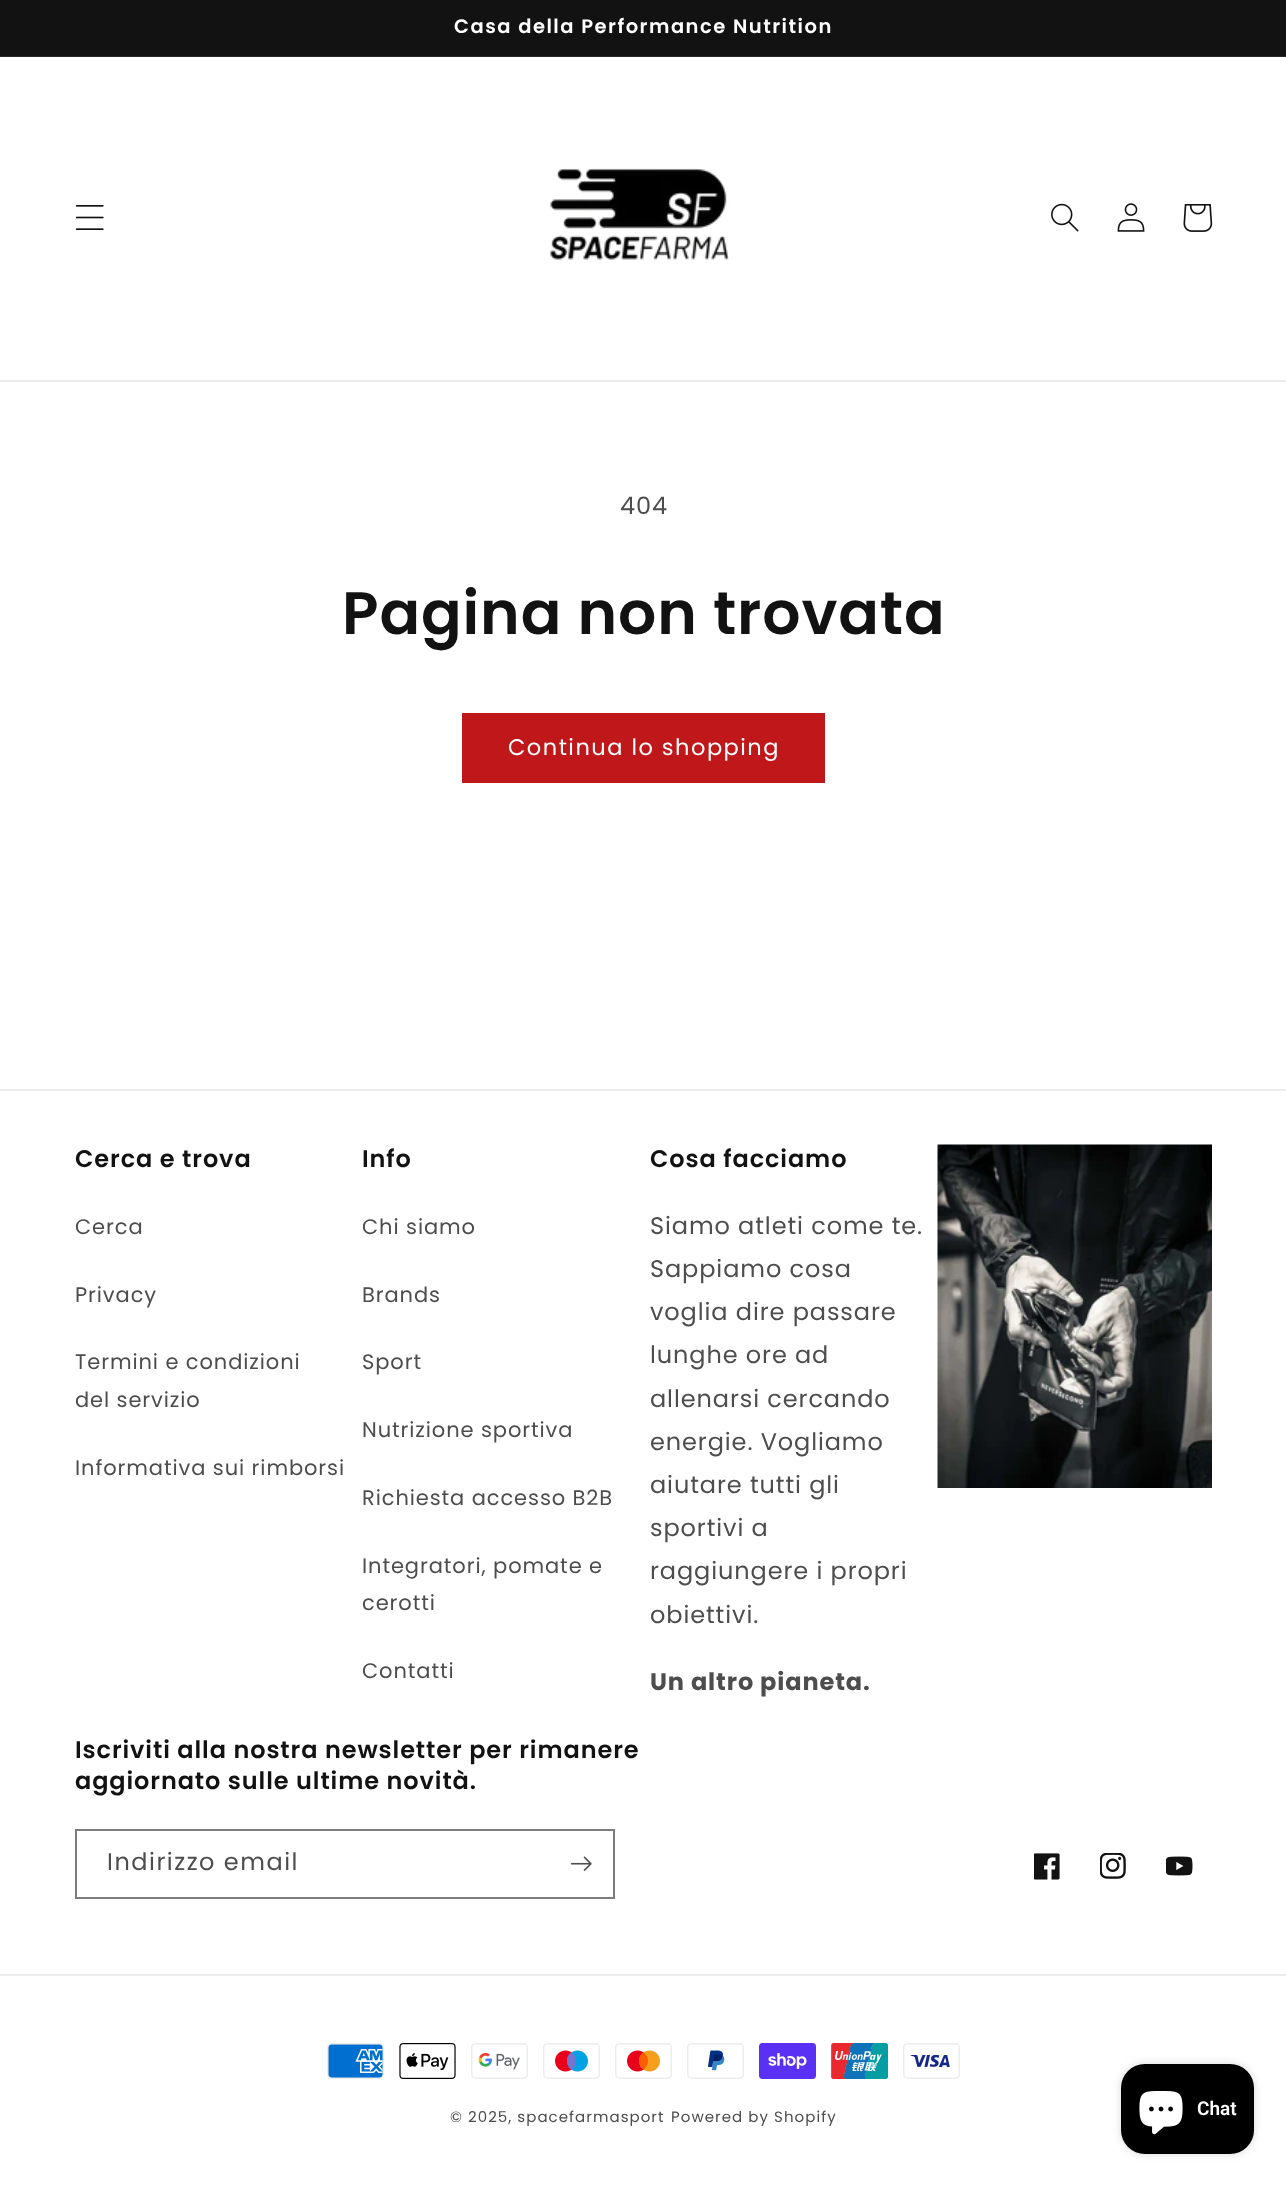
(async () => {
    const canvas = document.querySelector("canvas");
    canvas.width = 1286;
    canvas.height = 2185;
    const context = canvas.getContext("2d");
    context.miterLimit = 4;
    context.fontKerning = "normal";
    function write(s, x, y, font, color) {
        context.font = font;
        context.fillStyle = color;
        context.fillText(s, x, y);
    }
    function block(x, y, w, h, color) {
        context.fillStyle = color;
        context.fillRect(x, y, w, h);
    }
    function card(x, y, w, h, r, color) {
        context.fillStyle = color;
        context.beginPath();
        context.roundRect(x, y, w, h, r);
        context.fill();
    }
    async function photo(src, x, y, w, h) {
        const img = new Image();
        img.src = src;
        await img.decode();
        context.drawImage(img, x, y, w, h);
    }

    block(0, 0, 1286, 2185, "rgb(255, 255, 255)");
    block(0, 0, 1286, 56, "rgb(18, 18, 18)");
    block(0, 56, 1286, 1, "rgb(37, 37, 37)");
    context.letterSpacing = "1.5px";
    write("Casa della Performance Nutrition", 454, 33, "600 19.5px Poppins", "rgb(255, 255, 255)");
    block(0, 380, 1286, 2, "rgb(236, 236, 236)");
    await photo("media/1.png", 75, 205, 29, 25);
    await photo("media/2.png", 550, 168, 179, 92);
    await photo("media/3.png", 1051, 203, 28, 29);
    await photo("media/4.png", 1117, 203, 28, 29);
    await photo("media/5.png", 1183, 204, 30, 28);
    context.letterSpacing = "0.9px";
    write("404", 620, 514, "24px Poppins", "rgb(77, 77, 77)");
    write("Pagina non trovata", 342, 634, "600 60px Poppins", "rgb(18, 18, 18)");
    block(462, 713, 363, 70, "rgb(192, 24, 26)");
    context.letterSpacing = "1.5px";
    write("Continua lo shopping", 508, 755, "22.5px Poppins", "rgb(255, 255, 255)");
    block(0, 1089, 1286, 2, "rgb(236, 236, 236)");
    context.letterSpacing = "0.9px";
    write("Cerca e trova", 75, 1167, "600 24px Poppins", "rgb(18, 18, 18)");
    write("Cerca", 75, 1234, "21px Poppins", "rgb(77, 77, 77)");
    write("Privacy", 75, 1302, "21px Poppins", "rgb(77, 77, 77)");
    write("Termini e condizioni", 75, 1369, "21px Poppins", "rgb(77, 77, 77)");
    write("del servizio", 75, 1407, "21px Poppins", "rgb(77, 77, 77)");
    write("Informativa sui rimborsi", 75, 1475, "21px Poppins", "rgb(77, 77, 77)");
    write("Info", 362, 1167, "600 24px Poppins", "rgb(18, 18, 18)");
    write("Chi siamo", 362, 1234, "21px Poppins", "rgb(77, 77, 77)");
    write("Brands", 362, 1302, "21px Poppins", "rgb(77, 77, 77)");
    write("Sport", 362, 1369, "21px Poppins", "rgb(77, 77, 77)");
    write("Nutrizione sportiva", 362, 1437, "21px Poppins", "rgb(77, 77, 77)");
    write("Richiesta accesso B2B", 362, 1505, "21px Poppins", "rgb(77, 77, 77)");
    write("Integratori, pomate e", 362, 1573, "21px Poppins", "rgb(77, 77, 77)");
    write("cerotti", 362, 1610, "21px Poppins", "rgb(77, 77, 77)");
    write("Contatti", 362, 1678, "21px Poppins", "rgb(77, 77, 77)");
    write("Cosa facciamo", 650, 1167, "600 24px Poppins", "rgb(18, 18, 18)");
    write("Siamo atleti come te.", 650, 1234, "24px Poppins", "rgb(77, 77, 77)");
    write("Sappiamo cosa", 650, 1277, "24px Poppins", "rgb(77, 77, 77)");
    write("voglia dire passare", 650, 1320, "24px Poppins", "rgb(77, 77, 77)");
    write("lunghe ore ad", 650, 1363, "24px Poppins", "rgb(77, 77, 77)");
    write("allenarsi cercando", 650, 1407, "24px Poppins", "rgb(77, 77, 77)");
    write("energie. Vogliamo", 650, 1450, "24px Poppins", "rgb(77, 77, 77)");
    write("aiutare tutti gli", 650, 1493, "24px Poppins", "rgb(77, 77, 77)");
    write("sportivi a", 650, 1536, "24px Poppins", "rgb(77, 77, 77)");
    write("raggiungere i propri", 650, 1579, "24px Poppins", "rgb(77, 77, 77)");
    write("obiettivi.", 650, 1623, "24px Poppins", "rgb(77, 77, 77)");
    write("Un altro pianeta.", 650, 1690, "bold 24px Poppins", "rgb(77, 77, 77)");
    await photo("media/6.png", 937, 1144, 275, 344);
    write("Iscriviti alla nostra newsletter per rimanere", 75, 1758, "600 24px Poppins", "rgb(18, 18, 18)");
    write("aggiornato sulle ultime novità.", 75, 1789, "600 24px Poppins", "rgb(18, 18, 18)");
    context.strokeStyle = "rgb(125, 125, 125)";
    context.lineWidth = 2;
    context.strokeRect(76, 1830, 538, 68);
    context.letterSpacing = "1.5px";
    write("Indirizzo email", 107, 1870, "24px Poppins", "rgb(77, 77, 77)");
    await photo("media/7.png", 570, 1856, 22, 15);
    await photo("media/8.png", 1034, 1853, 26, 27);
    await photo("media/9.png", 1100, 1853, 26, 26);
    await photo("media/10.png", 1166, 1856, 27, 20);
    block(0, 1974, 1286, 2, "rgb(236, 236, 236)");
    await photo("media/11.png", 327, 2043, 57, 36);
    await photo("media/12.png", 399, 2043, 57, 36);
    await photo("media/13.png", 471, 2043, 57, 36);
    await photo("media/14.png", 543, 2043, 57, 36);
    await photo("media/15.png", 615, 2043, 57, 36);
    await photo("media/16.png", 687, 2043, 57, 36);
    await photo("media/17.png", 759, 2043, 57, 36);
    await photo("media/18.png", 831, 2043, 57, 36);
    await photo("media/19.png", 903, 2043, 57, 36);
    context.letterSpacing = "1.05px";
    write("© 2025, spacefarmasport", 450, 2122, "15px Poppins", "rgb(77, 77, 77)");
    write("Powered by Shopify", 671, 2122, "15px Poppins", "rgb(77, 77, 77)");
    context.fillStyle = "rgba(0, 0, 0, 0.15)";
    context.filter = "blur(4px)";
    context.beginPath();
    context.roundRect(1121, 2064, 133, 90, 24);
    context.fill();
    context.filter = "none";
    card(1121, 2064, 133, 90, 24, "rgb(0, 0, 0)");
    await photo("media/20.png", 1139, 2091, 44, 44);
    context.letterSpacing = "0px";
    write("Chat", 1197, 2115, "600 19px Roboto", "rgb(255, 255, 255)");
})();
